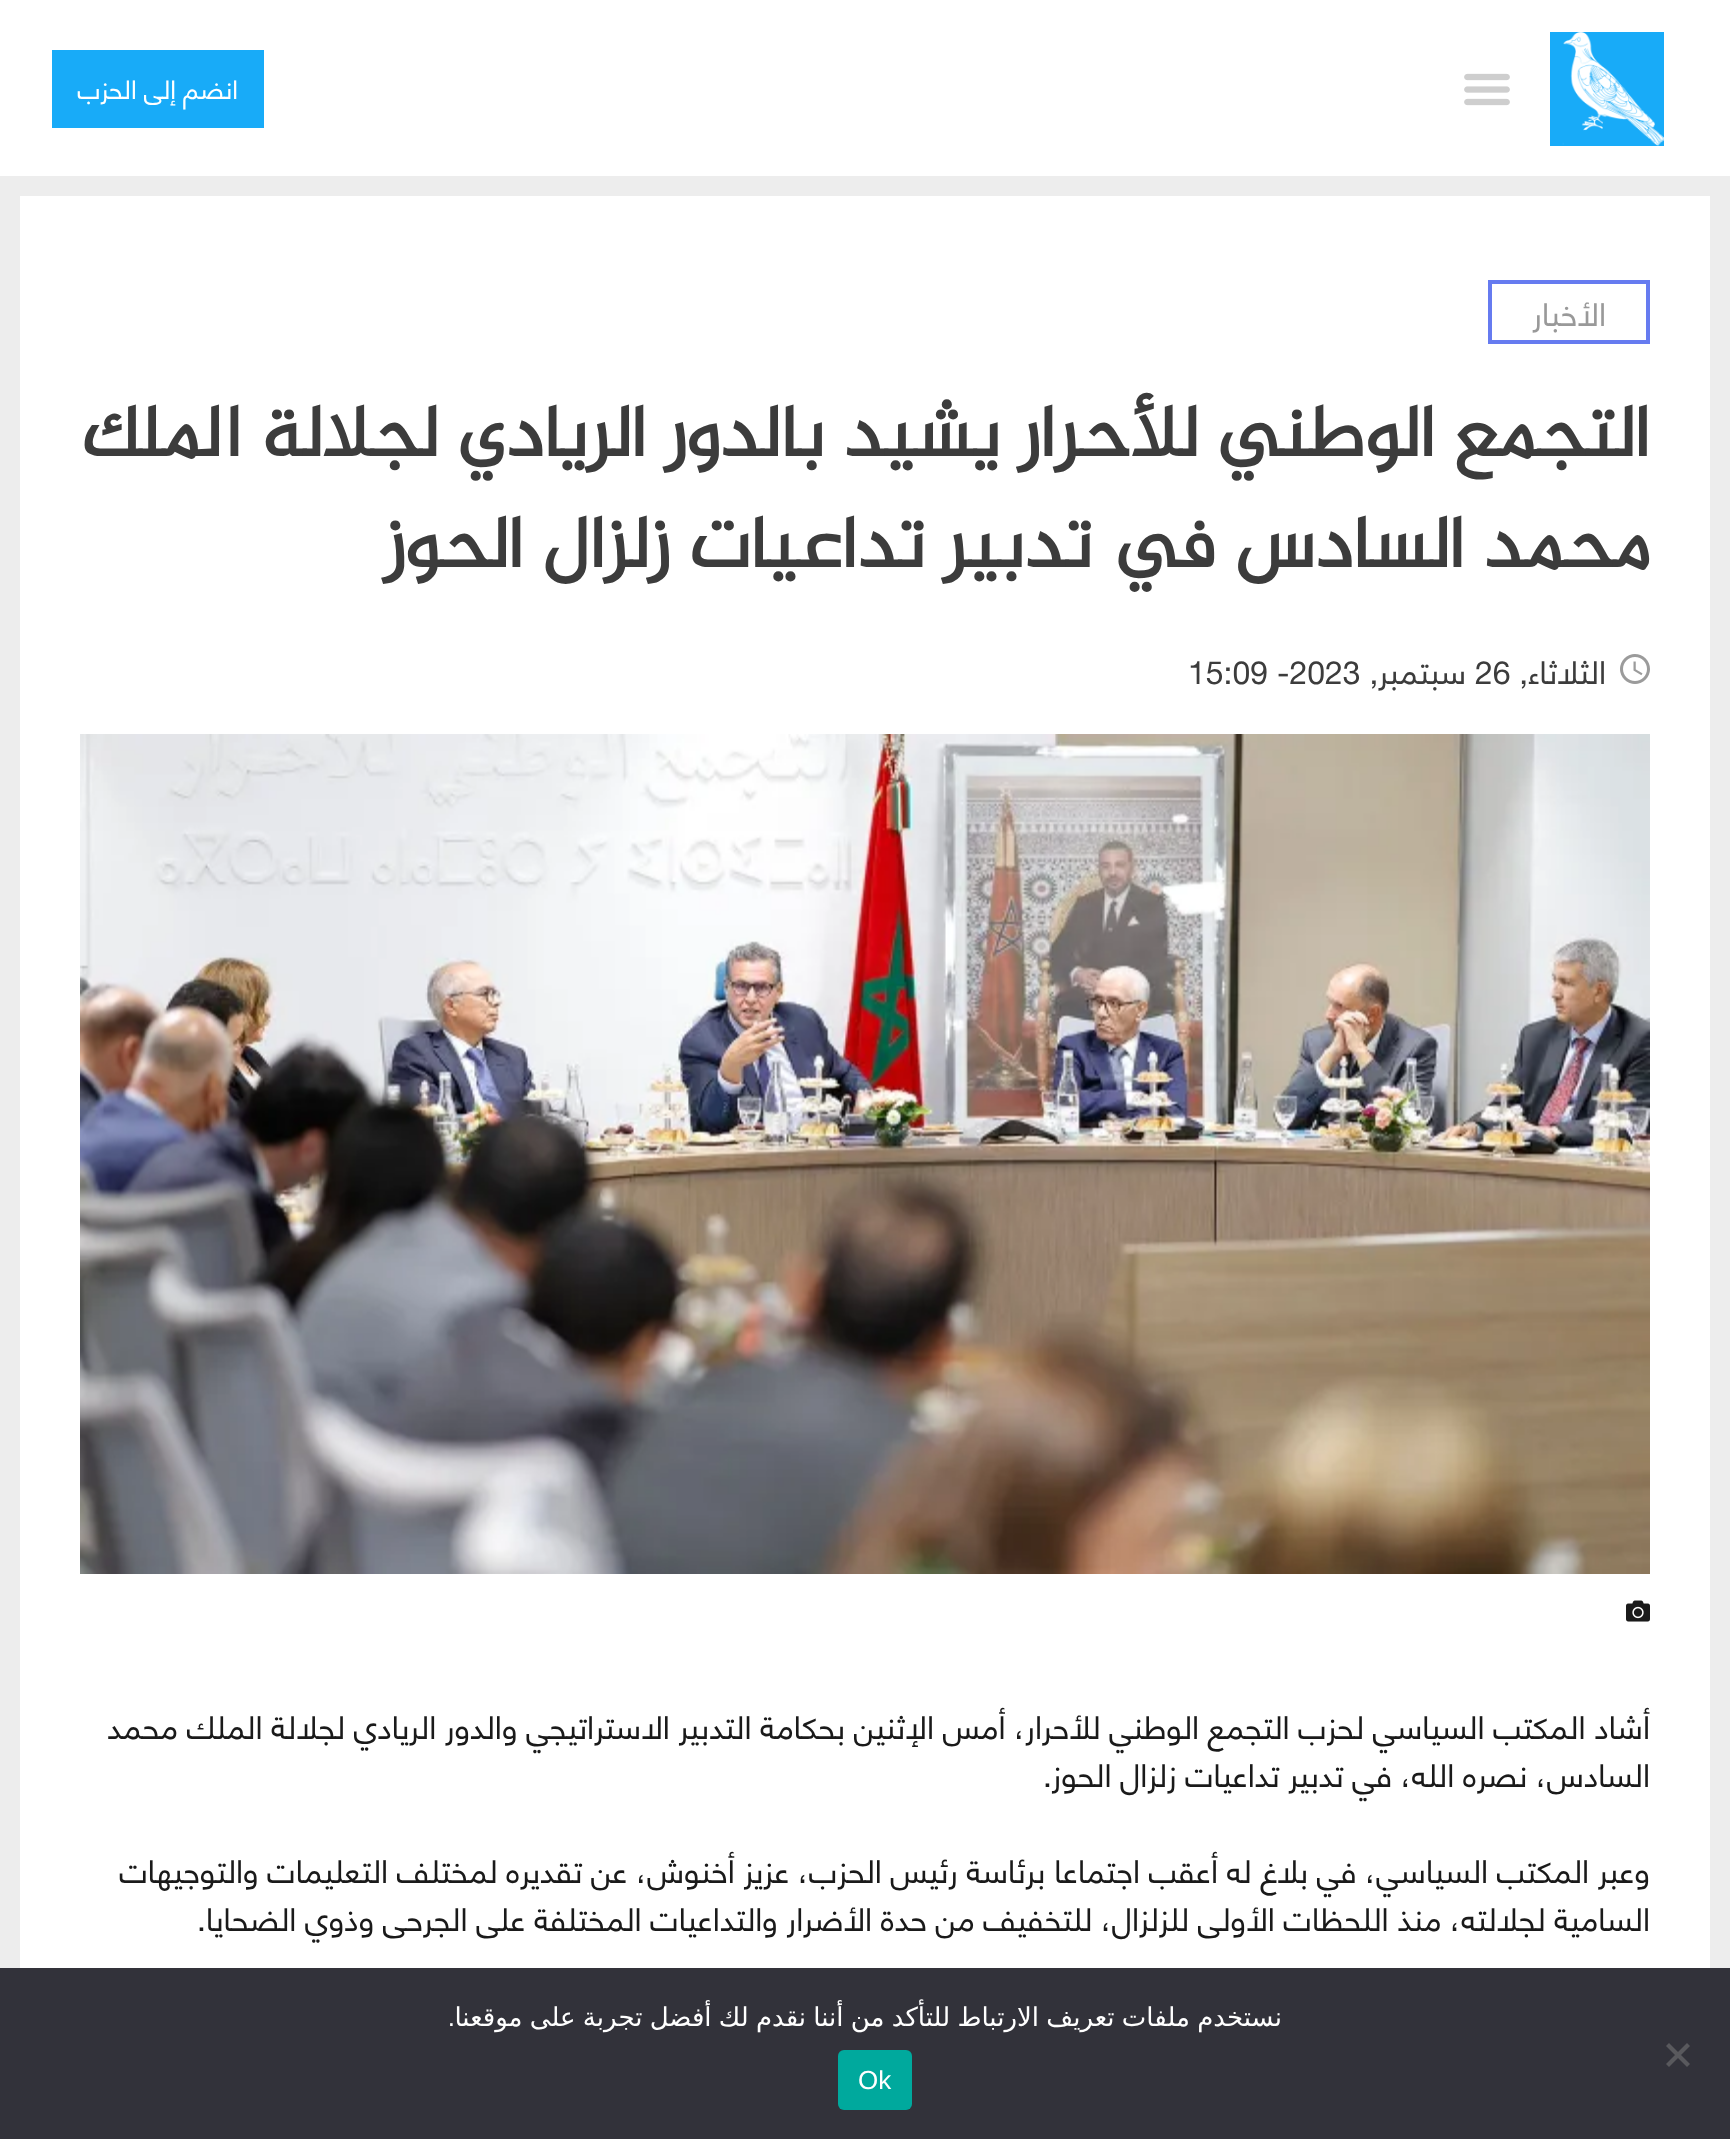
(async () => {
    const canvas = document.querySelector("canvas");
    canvas.width = 1730;
    canvas.height = 2139;
    const context = canvas.getContext("2d");
    context.miterLimit = 4;
    context.fontKerning = "normal";
    function write(s, x, y, font, color) {
        context.font = font;
        context.fillStyle = color;
        context.fillText(s, x, y);
    }
    function block(x, y, w, h, color) {
        context.fillStyle = color;
        context.fillRect(x, y, w, h);
    }
    function card(x, y, w, h, r, color) {
        context.fillStyle = color;
        context.beginPath();
        context.roundRect(x, y, w, h, r);
        context.fill();
    }
    async function photo(src, x, y, w, h) {
        const img = new Image();
        img.src = src;
        await img.decode();
        context.drawImage(img, x, y, w, h);
    }

    block(0, 0, 1730, 2139, "rgb(237, 237, 237)");
    block(0, 0, 1730, 176, "rgb(255, 255, 255)");
    block(1550, 32, 114, 114, "rgb(24, 171, 248)");
    await photo("media/1.png", 1562, 32, 102, 114);
    await photo("media/2.png", 1464, 73, 46, 33);
    block(52, 50, 212, 78, "rgb(24, 171, 248)");
    context.direction = "rtl";
    write("انضم إلى الحزب", 238, 99, "26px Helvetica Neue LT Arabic", "rgb(255, 255, 255)");
    block(20, 196, 1690, 1772, "rgb(255, 255, 255)");
    context.strokeStyle = "rgb(102, 123, 240)";
    context.lineWidth = 4;
    context.strokeRect(1490, 282, 158, 60);
    write("الأخبار", 1606, 326, "32px Helvetica Neue LT Arabic", "rgb(153, 153, 153)");
    write("التجمع الوطني للأحرار يشيد بالدور الريادي لجلالة الملك", 1650, 456, "bold 74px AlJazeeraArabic", "rgb(60, 60, 60)");
    write("محمد السادس في تدبير تداعيات زلزال الحوز", 1650, 567, "bold 74px AlJazeeraArabic", "rgb(60, 60, 60)");
    await photo("media/3.png", 1620, 654, 30, 30);
    write("الثلاثاء,", 1606, 684, "32px Helvetica Neue LT Arabic", "rgb(60, 60, 60)");
    context.direction = "ltr";
    write("26", 1475, 684, "32px Helvetica Neue LT Arabic", "rgb(60, 60, 60)");
    context.direction = "rtl";
    write("سبتمبر,", 1466, 684, "32px Helvetica Neue LT Arabic", "rgb(60, 60, 60)");
    context.direction = "ltr";
    write("15:09 -2023", 1188, 684, "32px Helvetica Neue LT Arabic", "rgb(60, 60, 60)");
    await photo("media/4.png", 80, 734, 1570, 840);
    await photo("media/5.png", 1626, 1600, 24, 22);
    context.direction = "rtl";
    write("أشاد المكتب السياسي لحزب التجمع الوطني للأحرار، أمس الإثنين بحكامة التدبير الاستراتيجي والدور الريادي لجلالة الملك محمد", 1650, 1739, "32px Helvetica Neue LT Arabic", "rgb(26, 26, 26)");
    write("السادس، نصره الله، في تدبير تداعيات زلزال الحوز.", 1650, 1787, "32px Helvetica Neue LT Arabic", "rgb(26, 26, 26)");
    write("وعبر المكتب السياسي، في بلاغ له أعقب اجتماعا برئاسة رئيس الحزب، عزيز أخنوش، عن تقديره لمختلف التعليمات والتوجيهات", 1650, 1883, "32px Helvetica Neue LT Arabic", "rgb(26, 26, 26)");
    write("السامية لجلالته، منذ اللحظات الأولى للزلزال، للتخفيف من حدة الأضرار والتداعيات المختلفة على الجرحى وذوي الضحايا.", 1650, 1931, "32px Helvetica Neue LT Arabic", "rgb(26, 26, 26)");
    block(0, 1968, 1730, 171, "rgb(50, 50, 58)");
    context.wordSpacing = "-1px";
    write("نستخدم ملفات تعريف الارتباط للتأكد من أننا نقدم لك أفضل تجربة على موقعنا", 1282, 2026, "26px DejaVu Sans", "rgb(255, 255, 255)");
    context.wordSpacing = "0px";
    write(".", 455, 2026, "26px Liberation Sans", "rgb(255, 255, 255)");
    context.fillStyle = "rgb(89, 89, 93)";
    context.beginPath();
    context.moveTo(1687, 2043);
    context.lineTo(1690, 2046);
    context.lineTo(1669, 2067);
    context.lineTo(1666, 2064);
    context.closePath();
    context.fill();
    context.beginPath();
    context.moveTo(1666, 2046);
    context.lineTo(1669, 2043);
    context.lineTo(1690, 2064);
    context.lineTo(1687, 2067);
    context.closePath();
    context.fill();
    card(838, 2050, 74, 60, 6, "rgb(0, 169, 157)");
    context.direction = "ltr";
    write("Ok", 858, 2089, "26px Liberation Sans", "rgb(255, 255, 255)");
})();
